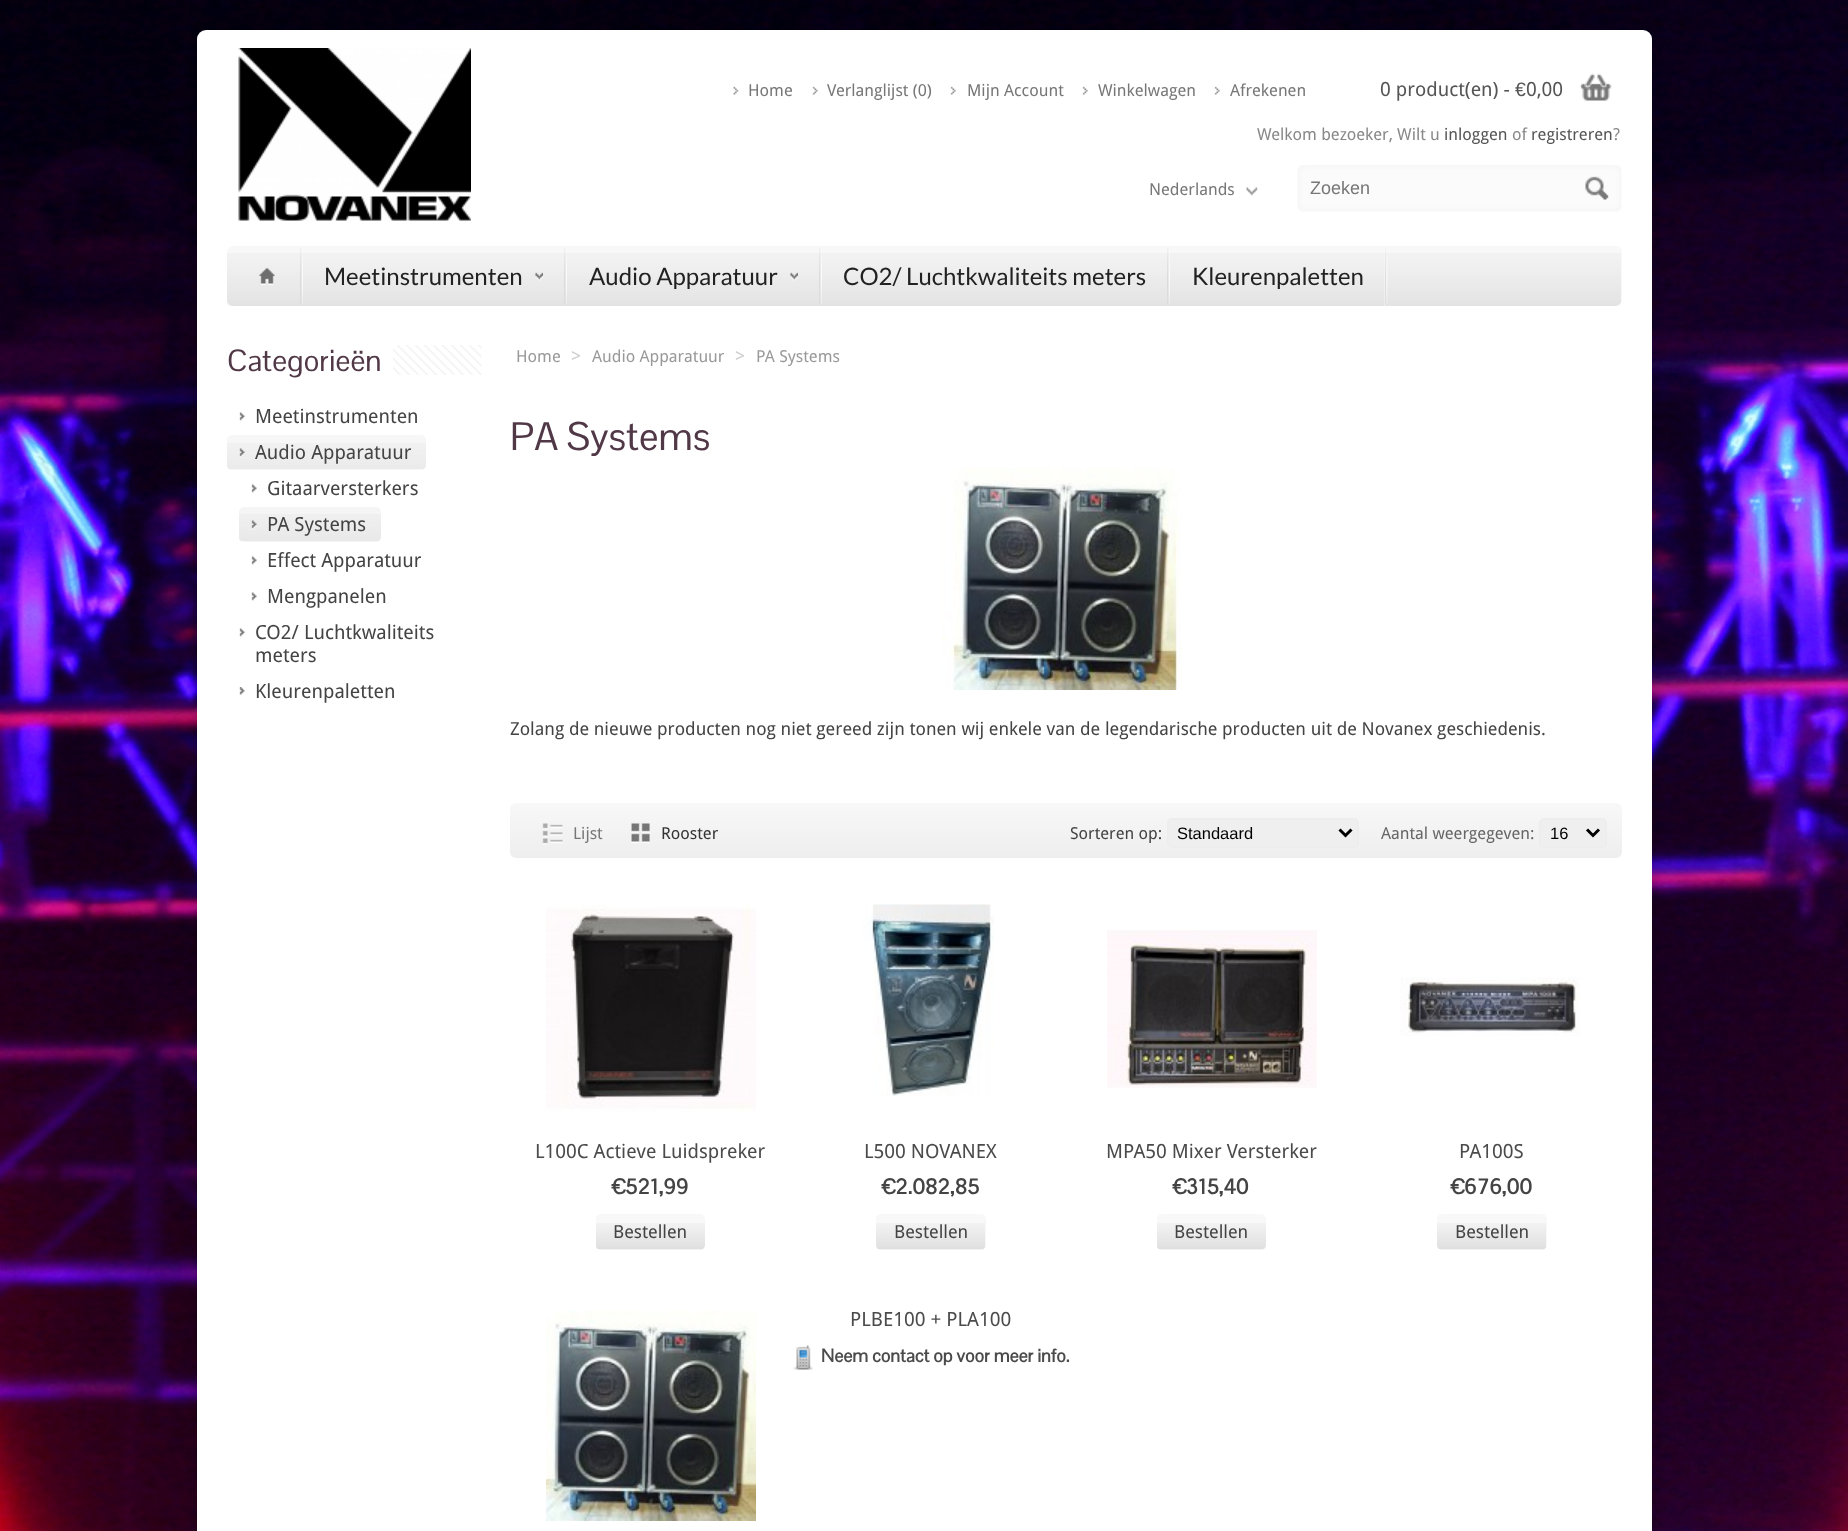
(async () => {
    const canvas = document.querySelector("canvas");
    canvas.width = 1848;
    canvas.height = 1531;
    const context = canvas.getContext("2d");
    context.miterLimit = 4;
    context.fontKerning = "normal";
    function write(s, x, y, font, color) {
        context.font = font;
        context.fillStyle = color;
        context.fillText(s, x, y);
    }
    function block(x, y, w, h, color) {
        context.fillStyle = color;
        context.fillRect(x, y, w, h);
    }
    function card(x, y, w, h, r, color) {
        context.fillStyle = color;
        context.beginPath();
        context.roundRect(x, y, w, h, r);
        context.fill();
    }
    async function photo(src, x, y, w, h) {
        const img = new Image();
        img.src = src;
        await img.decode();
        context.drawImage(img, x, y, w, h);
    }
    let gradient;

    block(0, 0, 1848, 1531, "rgb(255, 255, 255)");
    await photo("media/1.png", 0, 0, 1848, 1531);
    context.fillStyle = "rgba(0, 0, 0, 0.15)";
    context.filter = "blur(4px)";
    context.beginPath();
    context.roundRect(197, 30, 1455, 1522, 9);
    context.fill();
    context.filter = "none";
    card(197, 30, 1455, 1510, 9, "rgb(255, 255, 255)");
    await photo("media/2.png", 238, 48, 233, 173);
    await photo("media/3.png", 733, 86, 6, 9);
    write("Home", 748, 96, "16.5px Droid Sans", "rgb(119, 119, 119)");
    await photo("media/4.png", 812, 86, 6, 9);
    write("Verlanglijst (0)", 827, 96, "16.5px Droid Sans", "rgb(119, 119, 119)");
    await photo("media/4.png", 950, 86, 6, 9);
    write("Mijn Account", 967, 96, "16.5px Droid Sans", "rgb(119, 119, 119)");
    await photo("media/4.png", 1082, 86, 6, 9);
    write("Winkelwagen", 1098, 96, "16.5px Droid Sans", "rgb(119, 119, 119)");
    await photo("media/4.png", 1214, 86, 6, 9);
    write("Afrekenen", 1230, 96, "16.5px Droid Sans", "rgb(119, 119, 119)");
    await photo("media/5.png", 1580, 73, 32, 28);
    write("0 product(en) -", 1380, 96, "19.5px Droid Sans", "rgb(85, 85, 85)");
    write("€", 1515, 96, "19.5px Liberation Sans", "rgb(85, 85, 85)");
    write("0,00", 1526, 96, "19.5px Droid Sans", "rgb(85, 85, 85)");
    write("Welkom bezoeker, Wilt u", 1257, 140, "16.5px Droid Sans", "rgb(136, 136, 136)");
    write("inloggen", 1444, 140, "16.5px Droid Sans", "rgb(85, 85, 85)");
    write("of", 1512, 140, "16.5px Droid Sans", "rgb(136, 136, 136)");
    write("registreren", 1531, 140, "16.5px Droid Sans", "rgb(85, 85, 85)");
    write("?", 1613, 140, "16.5px Droid Sans", "rgb(136, 136, 136)");
    write("Nederlands", 1149, 195, "16.5px Droid Sans", "rgb(119, 119, 119)");
    await photo("media/6.png", 1246, 187, 12, 9);
    await photo("media/7.png", 1297, 165, 325, 47);
    write("Zoeken", 1310, 194, "18px Liberation Sans", "rgb(119, 119, 119)");
    await photo("media/8.png", 1585, 176, 24, 24);
    card(227, 246, 1395, 60, 6, "rgb(248, 248, 248)");
    await photo("media/9.png", 227, 253, 1394, 53);
    await photo("media/10.png", 300, 248, 3, 56);
    block(234, 253, 66, 53, "rgb(248, 248, 248)");
    await photo("media/11.png", 234, 253, 66, 53);
    await photo("media/12.png", 259, 268, 16, 17);
    await photo("media/10.png", 564, 248, 3, 56);
    block(303, 253, 261, 53, "rgb(248, 248, 248)");
    await photo("media/13.png", 303, 253, 261, 53);
    write("Meetinstrumenten", 324, 285, "24px Lato", "rgb(34, 34, 34)");
    await photo("media/14.png", 535, 272, 8, 9);
    await photo("media/15.png", 819, 248, 3, 56);
    block(567, 253, 252, 53, "rgb(248, 248, 248)");
    await photo("media/16.png", 567, 253, 252, 53);
    write("Audio Apparatuur", 589, 285, "24px Lato", "rgb(34, 34, 34)");
    await photo("media/17.png", 790, 272, 8, 9);
    await photo("media/10.png", 1167, 248, 3, 56);
    block(822, 253, 345, 53, "rgb(248, 248, 248)");
    await photo("media/18.png", 822, 253, 345, 53);
    write("CO2/ Luchtkwaliteits meters", 843, 285, "24px Lato", "rgb(34, 34, 34)");
    await photo("media/19.png", 1385, 248, 3, 56);
    block(1170, 253, 215, 53, "rgb(248, 248, 248)");
    await photo("media/20.png", 1170, 253, 215, 53);
    write("Kleurenpaletten", 1192, 285, "24px Lato", "rgb(34, 34, 34)");
    await photo("media/21.png", 226, 345, 256, 30);
    block(227, 345, 166, 30, "rgb(255, 255, 255)");
    write("Categorieën", 227, 371, "30px Pontano Sans", "rgb(81, 56, 71)");
    await photo("media/22.png", 239, 412, 6, 9);
    write("Meetinstrumenten", 255, 423, "19.5px Droid Sans", "rgb(68, 68, 68)");
    card(227, 435, 199, 35, 5, "rgb(247, 247, 247)");
    await photo("media/23.png", 227, 443, 199, 26);
    await photo("media/24.png", 239, 448, 6, 10);
    write("Audio Apparatuur", 255, 459, "19.5px Droid Sans", "rgb(68, 68, 68)");
    await photo("media/22.png", 251, 484, 6, 9);
    write("Gitaarversterkers", 267, 495, "19.5px Droid Sans", "rgb(68, 68, 68)");
    card(239, 507, 142, 35, 5, "rgb(245, 245, 245)");
    await photo("media/25.png", 239, 514, 142, 27);
    await photo("media/26.png", 251, 520, 6, 10);
    write("PA Systems", 267, 531, "19.5px Droid Sans", "rgb(68, 68, 68)");
    await photo("media/22.png", 251, 556, 6, 9);
    write("Effect Apparatuur", 267, 567, "19.5px Droid Sans", "rgb(68, 68, 68)");
    await photo("media/22.png", 251, 592, 6, 9);
    write("Mengpanelen", 267, 603, "19.5px Droid Sans", "rgb(68, 68, 68)");
    await photo("media/22.png", 239, 628, 6, 9);
    write("CO2/ Luchtkwaliteits", 255, 639, "19.5px Droid Sans", "rgb(68, 68, 68)");
    write("meters", 255, 662, "19.5px Droid Sans", "rgb(68, 68, 68)");
    await photo("media/27.png", 239, 687, 6, 8);
    write("Kleurenpaletten", 255, 698, "19.5px Droid Sans", "rgb(68, 68, 68)");
    write("Home", 516, 362, "16.5px Droid Sans", "rgb(153, 153, 153)");
    write(">", 571, 362, "18px Droid Sans", "rgb(204, 204, 204)");
    write("Audio Apparatuur", 592, 362, "16.5px Droid Sans", "rgb(153, 153, 153)");
    write(">", 735, 362, "18px Droid Sans", "rgb(204, 204, 204)");
    write("PA Systems", 756, 362, "16.5px Droid Sans", "rgb(153, 153, 153)");
    write("PA Systems", 510, 450, "39px Pontano Sans", "rgb(81, 56, 71)");
    await photo("media/28.png", 941, 468, 241, 222);
    write("Zolang de nieuwe producten nog niet gereed zijn tonen wij enkele van de legendarische producten uit de Novanex geschiedenis.", 510, 735, "18px Droid Sans", "rgb(68, 68, 68)");
    gradient = context.createLinearGradient(1066, 803, 1066, 858);
    gradient.addColorStop(0, "rgb(248, 248, 248)");
    gradient.addColorStop(1, "rgb(238, 238, 238)");
    context.fillStyle = gradient;
    context.beginPath();
    context.roundRect(510, 803, 1112, 55, 6);
    context.fill();
    await photo("media/29.png", 542, 823, 21, 22);
    write("Lijst", 573, 839, "16.5px Droid Sans", "rgb(119, 119, 119)");
    await photo("media/30.png", 631, 822, 19, 21);
    write("Rooster", 661, 839, "16.5px Droid Sans", "rgb(51, 51, 51)");
    write("Sorteren op:", 1070, 839, "16.5px Droid Sans", "rgb(68, 68, 68)");
    context.fillStyle = "rgb(239, 239, 239)";
    context.beginPath();
    context.roundRect(1168, 819, 190, 28, 4);
    context.fill();
    context.strokeStyle = "rgb(237, 237, 237)";
    context.lineWidth = 2;
    context.stroke();
    context.beginPath();
    context.moveTo(1339.5, 829.5);
    context.lineTo(1345.5, 835.5);
    context.lineTo(1351.5, 829.5);
    context.strokeStyle = "rgb(0, 0, 0)";
    context.lineWidth = 3;
    context.stroke();
    write("Standaard", 1177, 839, "16.5px Liberation Sans", "rgb(0, 0, 0)");
    write("Aantal weergegeven:", 1381, 839, "16.5px Droid Sans", "rgb(102, 102, 102)");
    context.fillStyle = "rgb(239, 239, 239)";
    context.beginPath();
    context.roundRect(1540, 819, 66, 28, 4);
    context.fill();
    context.strokeStyle = "rgb(237, 237, 237)";
    context.lineWidth = 2;
    context.stroke();
    context.beginPath();
    context.moveTo(1587, 829.5);
    context.lineTo(1593, 835.5);
    context.lineTo(1599, 829.5);
    context.strokeStyle = "rgb(0, 0, 0)";
    context.lineWidth = 3;
    context.stroke();
    write("16", 1550, 839, "16.5px Liberation Sans", "rgb(0, 0, 0)");
    await photo("media/31.png", 546, 905, 210, 207);
    write("L100C Actieve Luidspreker", 535, 1158, "19.5px Droid Sans", "rgb(75, 75, 75)");
    write("€521,99", 612, 1194, "bold 21px Pontano Sans", "rgb(68, 68, 68)");
    card(596, 1214, 109, 36, 5, "rgb(248, 248, 248)");
    await photo("media/32.png", 596, 1223, 109, 27);
    write("Bestellen", 613, 1238, "18px Droid Sans", "rgb(68, 68, 68)");
    await photo("media/33.png", 863, 904, 131, 192);
    write("L500 NOVANEX", 864, 1158, "19.5px Droid Sans", "rgb(75, 75, 75)");
    write("€2.082,85", 882, 1194, "bold 21px Pontano Sans", "rgb(68, 68, 68)");
    card(876, 1214, 110, 36, 5, "rgb(248, 248, 248)");
    await photo("media/34.png", 876, 1223, 109, 27);
    write("Bestellen", 894, 1238, "18px Droid Sans", "rgb(68, 68, 68)");
    await photo("media/35.png", 1107, 930, 210, 158);
    write("MPA50 Mixer Versterker", 1106, 1158, "19.5px Droid Sans", "rgb(75, 75, 75)");
    write("€315,40", 1173, 1194, "bold 21px Pontano Sans", "rgb(68, 68, 68)");
    card(1157, 1214, 109, 36, 5, "rgb(248, 248, 248)");
    await photo("media/36.png", 1157, 1223, 109, 27);
    write("Bestellen", 1174, 1238, "18px Droid Sans", "rgb(68, 68, 68)");
    await photo("media/37.png", 1400, 977, 180, 59);
    write("PA100S", 1459, 1158, "19.5px Droid Sans", "rgb(75, 75, 75)");
    write("€676,00", 1451, 1194, "bold 21px Pontano Sans", "rgb(68, 68, 68)");
    card(1437, 1214, 110, 36, 5, "rgb(248, 248, 248)");
    await photo("media/38.png", 1437, 1223, 109, 27);
    write("Bestellen", 1455, 1238, "18px Droid Sans", "rgb(68, 68, 68)");
    await photo("media/39.png", 546, 1311, 210, 210);
    write("PLBE100 + PLA100", 850, 1326, "19.5px Droid Sans", "rgb(75, 75, 75)");
    await photo("media/40.png", 793, 1345, 20, 25);
    write("Neem contact op voor meer info.", 821, 1362, "bold 18px Pontano Sans", "rgb(75, 75, 75)");
})();
